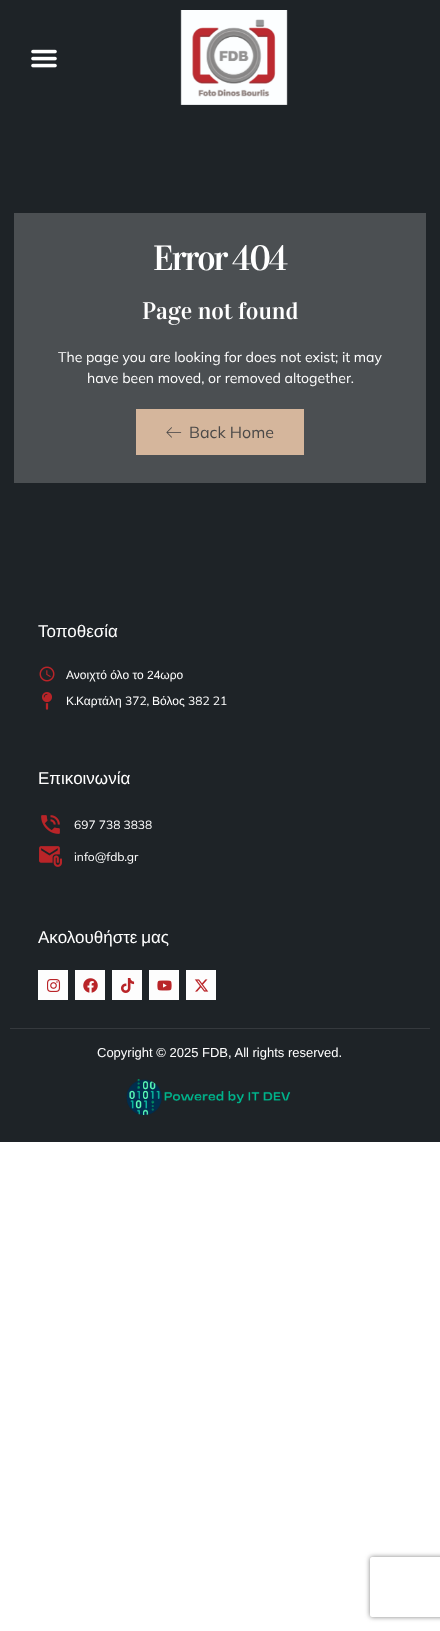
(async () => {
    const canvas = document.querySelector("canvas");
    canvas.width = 440;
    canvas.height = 1631;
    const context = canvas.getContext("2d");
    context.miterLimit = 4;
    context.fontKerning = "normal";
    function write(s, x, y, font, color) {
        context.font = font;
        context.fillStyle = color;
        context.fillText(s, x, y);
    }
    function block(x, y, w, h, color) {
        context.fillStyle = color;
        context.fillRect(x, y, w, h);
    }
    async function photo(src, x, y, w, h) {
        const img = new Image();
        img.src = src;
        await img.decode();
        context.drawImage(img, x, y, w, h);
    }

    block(0, 0, 440, 1631, "rgb(255, 255, 255)");
    block(0, 0, 440, 1142, "rgb(30, 35, 39)");
    await photo("media/1.png", 31, 49, 26, 19);
    await photo("media/2.png", 180, 10, 108, 95);
    block(14, 213, 412, 270, "rgb(75, 79, 82)");
    context.letterSpacing = "-2px";
    write("Error 404", 153, 270, "35px Vidaloka", "rgb(255, 255, 255)");
    context.letterSpacing = "0px";
    write("Page not found", 142, 319, "24px Vidaloka", "rgb(255, 255, 255)");
    write("The page you are looking for does not exist; it may", 58, 362, "14px Mulish", "rgb(255, 255, 255)");
    write("have been moved, or removed altogether.", 87, 383, "14px Mulish", "rgb(255, 255, 255)");
    block(136, 409, 168, 46, "rgb(213, 182, 156)");
    await photo("media/3.png", 166, 427, 16, 11);
    write("Back Home", 189, 438, "16px Mulish", "rgb(75, 73, 72)");
    block(10, 1028, 420, 1, "rgb(53, 57, 61)");
    write("Τοποθεσία", 38, 637, "17px Liberation Sans", "rgb(255, 255, 255)");
    await photo("media/4.png", 39, 666, 16, 16);
    write("Ανοιχτό όλο το 24ωρο", 66, 679, "12px Liberation Sans", "rgb(255, 255, 255)");
    await photo("media/5.png", 42, 692, 10, 18);
    write("Κ", 66, 705, "12px Liberation Sans", "rgb(255, 255, 255)");
    write(".", 74, 705, "12px Mulish", "rgb(255, 255, 255)");
    write("Καρτάλη", 76, 705, "12px Liberation Sans", "rgb(255, 255, 255)");
    write("372,", 125, 705, "12px Mulish", "rgb(255, 255, 255)");
    write("Βόλος", 152, 705, "12px Liberation Sans", "rgb(255, 255, 255)");
    write("382 21", 188, 705, "12px Mulish", "rgb(255, 255, 255)");
    write("Επικοινωνία", 38, 784, "17px Liberation Sans", "rgb(255, 255, 255)");
    await photo("media/6.png", 41, 815, 19, 19);
    write("697 738 3838", 74, 829, "12px Mulish", "rgb(255, 255, 255)");
    await photo("media/7.png", 39, 846, 23, 21);
    write("info@fdb.gr", 74, 861, "12px Mulish", "rgb(255, 255, 255)");
    context.wordSpacing = "-1px";
    write("Ακολουθήστε μας", 38, 943, "17px Liberation Sans", "rgb(255, 255, 255)");
    block(38, 970, 30, 30, "rgb(253, 253, 253)");
    await photo("media/8.png", 47, 979, 14, 13);
    block(75, 970, 30, 30, "rgb(253, 253, 253)");
    await photo("media/9.png", 83, 978, 15, 15);
    block(112, 970, 30, 30, "rgb(253, 253, 253)");
    await photo("media/10.png", 121, 978, 14, 15);
    block(149, 970, 30, 30, "rgb(253, 253, 253)");
    await photo("media/11.png", 157, 980, 15, 11);
    block(186, 970, 30, 30, "rgb(253, 253, 253)");
    await photo("media/12.png", 194, 979, 15, 13);
    context.wordSpacing = "0px";
    write("Copyright © 2025 FDB, All rights reserved.", 97, 1057, "13px Liberation Sans", "rgb(255, 255, 255)");
    await photo("media/13.png", 126, 1079, 165, 36);
    context.save();
    context.beginPath();
    context.moveTo(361, 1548);
    context.lineTo(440, 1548);
    context.lineTo(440, 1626);
    context.lineTo(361, 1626);
    context.closePath();
    context.moveTo(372, 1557);
    context.lineTo(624, 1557);
    context.bezierCurveTo(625, 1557, 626, 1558, 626, 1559);
    context.lineTo(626, 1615);
    context.bezierCurveTo(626, 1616, 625, 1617, 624, 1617);
    context.lineTo(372, 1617);
    context.bezierCurveTo(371, 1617, 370, 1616, 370, 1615);
    context.lineTo(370, 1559);
    context.bezierCurveTo(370, 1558, 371, 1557, 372, 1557);
    context.closePath();
    context.clip("evenodd");
    context.fillStyle = "rgb(128, 128, 128)";
    context.filter = "blur(2.5px)";
    context.beginPath();
    context.roundRect(370, 1557, 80, 60, 2);
    context.fill();
    context.filter = "none";
    context.restore();
})();
